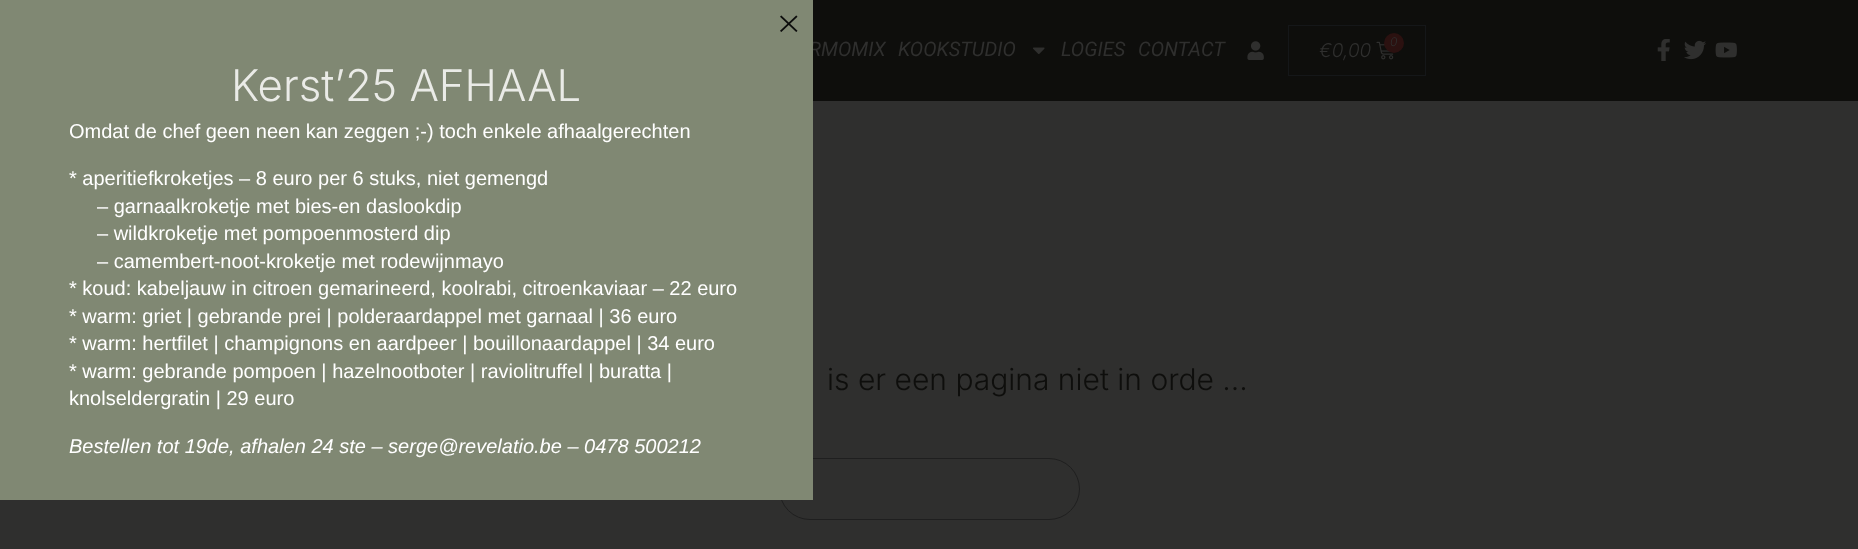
(async () => {
    const canvas = document.querySelector("canvas");
    canvas.width = 1858;
    canvas.height = 549;
    const context = canvas.getContext("2d");
    context.miterLimit = 4;
    context.fontKerning = "normal";
    function write(s, x, y, font, color) {
        context.font = font;
        context.fillStyle = color;
        context.fillText(s, x, y);
    }
    function block(x, y, w, h, color) {
        context.fillStyle = color;
        context.fillRect(x, y, w, h);
    }
    async function photo(src, x, y, w, h) {
        const img = new Image();
        img.src = src;
        await img.decode();
        context.drawImage(img, x, y, w, h);
    }

    block(0, 0, 1858, 549, "rgb(47, 47, 46)");
    block(813, 0, 1045, 101, "rgb(14, 14, 12)");
    write("RMOMIX", 809, 56, "italic 20px Roboto", "rgb(47, 47, 46)");
    context.beginPath();
    context.roundRect(779.5, 458.5, 300, 61, 30.5);
    context.strokeStyle = "rgb(31, 31, 31)";
    context.stroke();
    block(0, 0, 813, 500, "rgb(128, 136, 115)");
    await photo("media/1.png", 780, 15, 18, 17);
    write("Kerst’25 AFHAAL", 231, 101, "300 43.75px Inter", "rgb(234, 235, 231)");
    write("Omdat de chef geen neen kan zeggen ;-) toch enkele afhaalgerechten", 69, 138, "20px Liberation Sans", "rgb(255, 255, 255)");
    write("* aperitiefkroketjes – 8 euro per 6 stuks, niet gemengd", 69, 185, "20px Liberation Sans", "rgb(255, 255, 255)");
    write("– garnaalkroketje met bies-en daslookdip", 97, 213, "20px Liberation Sans", "rgb(255, 255, 255)");
    write("– wildkroketje met pompoenmosterd dip", 97, 240, "20px Liberation Sans", "rgb(255, 255, 255)");
    write("– camembert-noot-kroketje met rodewijnmayo", 97, 268, "20px Liberation Sans", "rgb(255, 255, 255)");
    write("* koud: kabeljauw in citroen gemarineerd, koolrabi, citroenkaviaar – 22 euro", 69, 295, "20px Liberation Sans", "rgb(255, 255, 255)");
    write("* warm: griet | gebrande prei | polderaardappel met garnaal | 36 euro", 69, 323, "20px Liberation Sans", "rgb(255, 255, 255)");
    write("* warm: hertfilet | champignons en aardpeer | bouillonaardappel | 34 euro", 69, 350, "20px Liberation Sans", "rgb(255, 255, 255)");
    write("* warm: gebrande pompoen | hazelnootboter | raviolitruffel | buratta |", 69, 378, "20px Liberation Sans", "rgb(255, 255, 255)");
    write("knolseldergratin | 29 euro", 69, 405, "20px Liberation Sans", "rgb(255, 255, 255)");
    write("Bestellen tot 19de, afhalen 24 ste – serge@revelatio.be – 0478 500212", 69, 453, "italic 20px Liberation Sans", "rgb(255, 255, 255)");
    write("KOOKSTUDIO", 898, 56, "italic 20px Roboto", "rgb(47, 47, 46)");
    await photo("media/2.png", 1033, 47, 12, 7);
    write("LOGIES", 1061, 56, "italic 20px Roboto", "rgb(47, 47, 46)");
    write("CONTACT", 1138, 56, "italic 20px Roboto", "rgb(47, 47, 46)");
    await photo("media/3.png", 1247, 41, 17, 19);
    context.strokeStyle = "rgb(21, 23, 25)";
    context.strokeRect(1288.5, 25.5, 137, 50);
    await photo("media/4.png", 1376, 41, 18, 19);
    context.fillStyle = "rgb(43, 17, 16)";
    context.beginPath();
    context.arc(1394, 43, 10, 0, Math.PI * 2);
    context.fill();
    write("0", 1390, 46, "italic 300 12px Inter", "rgb(47, 47, 46)");
    write("€0,00", 1319, 57, "italic 300 19px Inter", "rgb(47, 47, 46)");
    await photo("media/5.png", 1657, 39, 13, 22);
    await photo("media/6.png", 1684, 40, 22, 20);
    await photo("media/7.png", 1715, 42, 22, 16);
    write("is er een pagina niet in orde ...", 827, 390, "300 30px Inter", "rgb(14, 14, 12)");
})();
